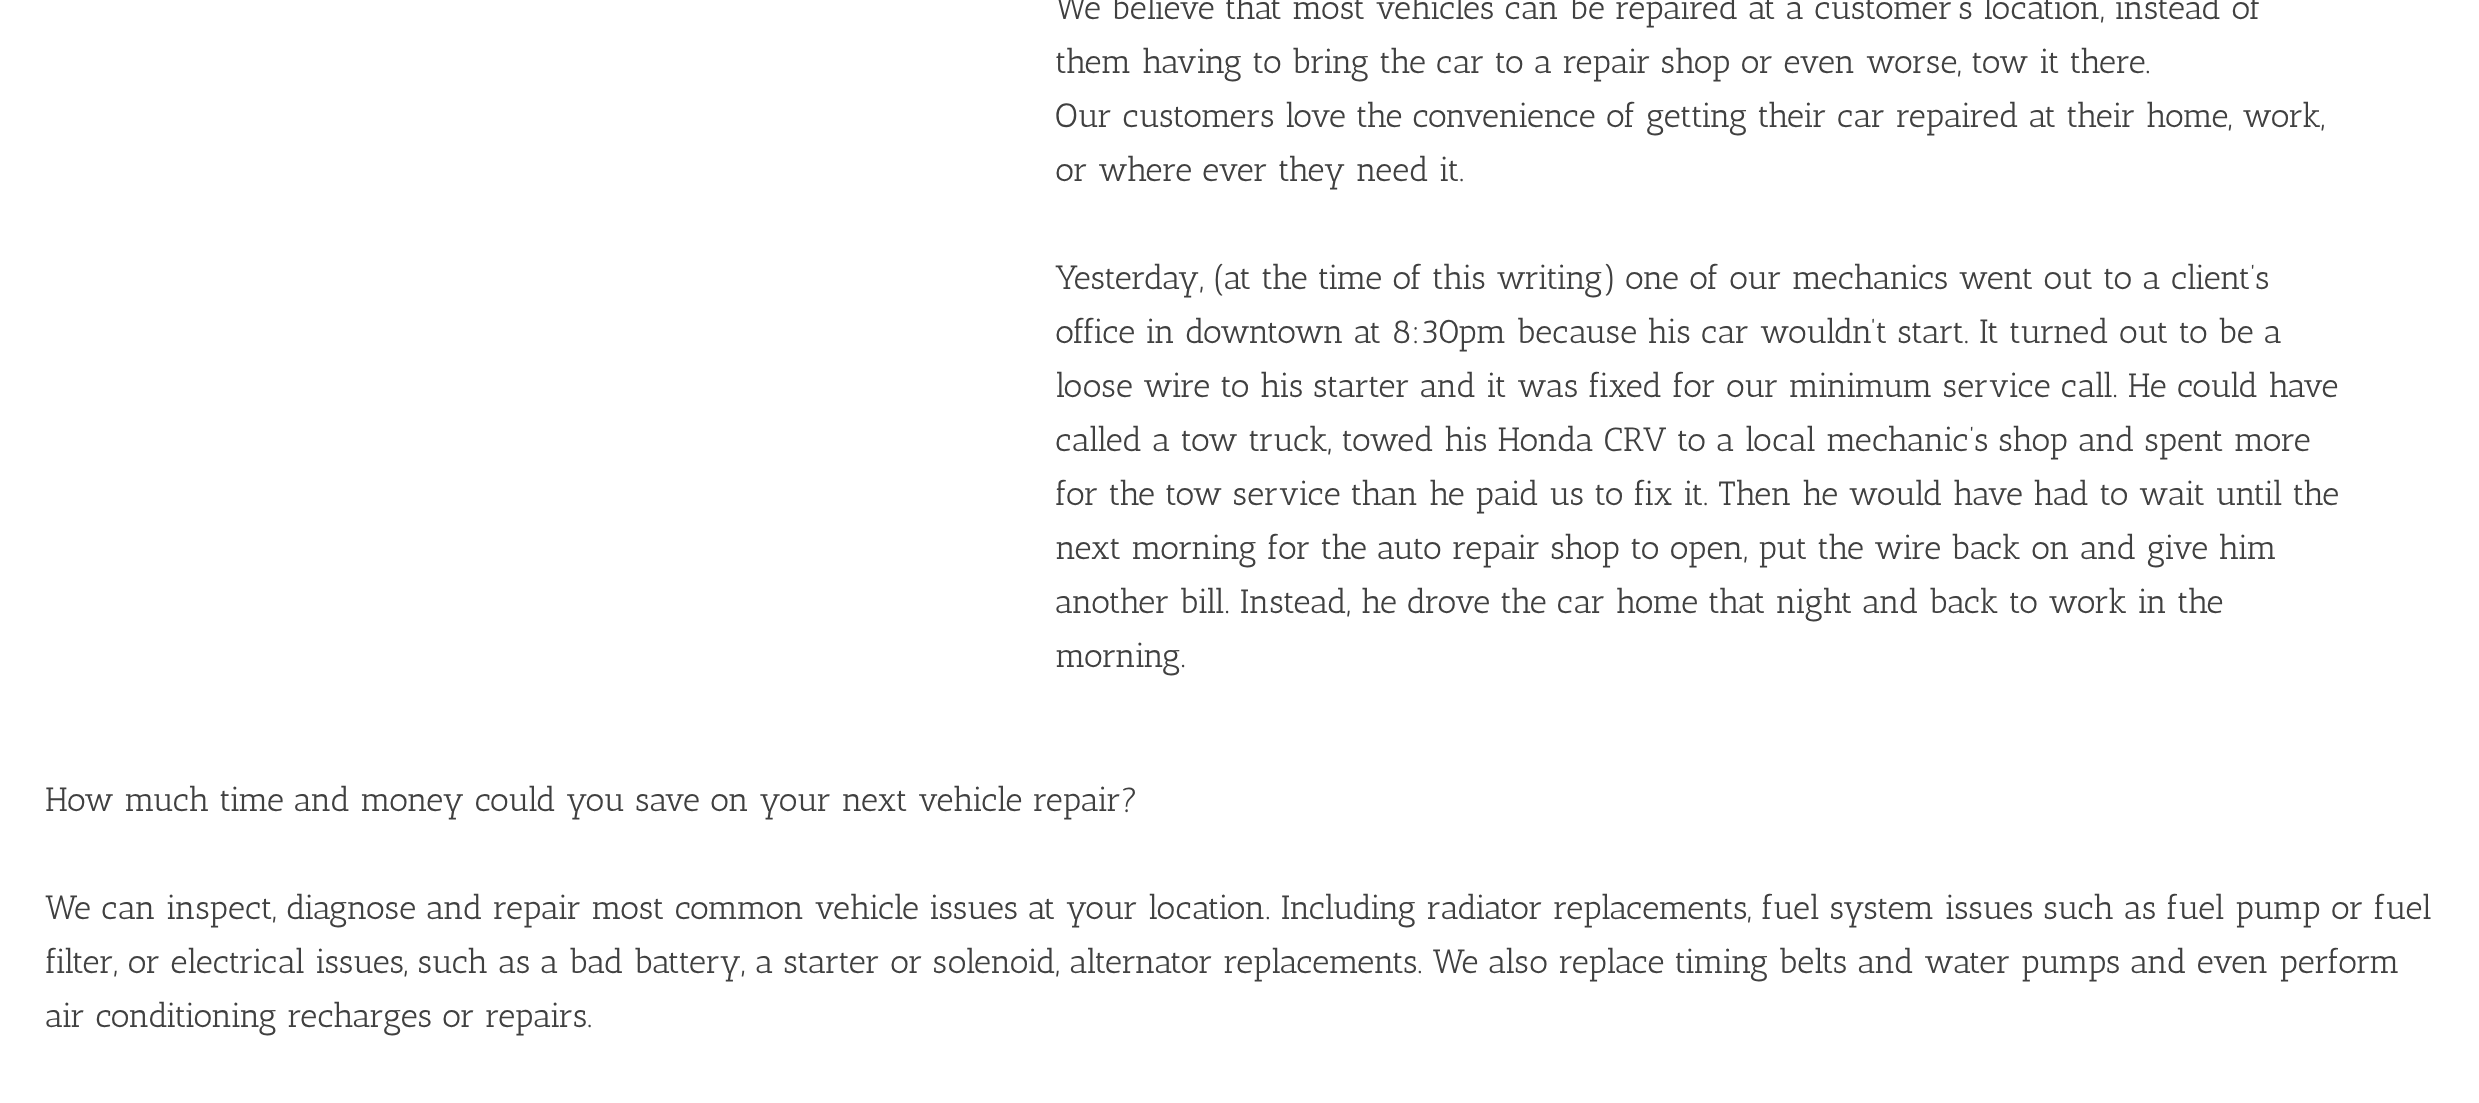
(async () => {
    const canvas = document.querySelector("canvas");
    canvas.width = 2479;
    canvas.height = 1103;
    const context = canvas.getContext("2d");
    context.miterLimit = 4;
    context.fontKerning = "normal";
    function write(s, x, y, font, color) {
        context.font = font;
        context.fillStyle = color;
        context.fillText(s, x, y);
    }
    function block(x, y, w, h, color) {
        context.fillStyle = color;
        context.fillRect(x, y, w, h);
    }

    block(0, 0, 2479, 1103, "rgb(255, 255, 255)");
    write("We believe that most vehicles can be repaired at a customer’s location, instead of", 1055, 19, "33.75px Antic Slab", "rgb(64, 64, 64)");
    write("them having to bring the car to a repair shop or even worse, tow it there.", 1055, 73, "33.75px Antic Slab", "rgb(64, 64, 64)");
    write("Our customers love the convenience of getting their car repaired at their home, work,", 1055, 127, "33.75px Antic Slab", "rgb(64, 64, 64)");
    write("or where ever they need it.", 1055, 181, "33.75px Antic Slab", "rgb(64, 64, 64)");
    write("Yesterday, (at the time of this writing) one of our mechanics went out to a client’s", 1055, 289, "33.75px Antic Slab", "rgb(64, 64, 64)");
    write("office in downtown at 8:30pm because his car wouldn’t start. It turned out to be a", 1055, 343, "33.75px Antic Slab", "rgb(64, 64, 64)");
    write("loose wire to his starter and it was fixed for our minimum service call. He could have", 1055, 397, "33.75px Antic Slab", "rgb(64, 64, 64)");
    write("called a tow truck, towed his Honda CRV to a local mechanic’s shop and spent more", 1055, 451, "33.75px Antic Slab", "rgb(64, 64, 64)");
    write("for the tow service than he paid us to fix it. Then he would have had to wait until the", 1055, 505, "33.75px Antic Slab", "rgb(64, 64, 64)");
    write("next morning for the auto repair shop to open, put the wire back on and give him", 1055, 559, "33.75px Antic Slab", "rgb(64, 64, 64)");
    write("another bill. Instead, he drove the car home that night and back to work in the", 1055, 613, "33.75px Antic Slab", "rgb(64, 64, 64)");
    write("morning.", 1055, 667, "33.75px Antic Slab", "rgb(64, 64, 64)");
    write("How much time and money could you save on your next vehicle repair?", 45, 811, "33.75px Antic Slab", "rgb(64, 64, 64)");
    write("We can inspect, diagnose and repair most common vehicle issues at your location. Including radiator replacements, fuel system issues such as fuel pump or fuel", 45, 919, "33.75px Antic Slab", "rgb(64, 64, 64)");
    write("filter, or electrical issues, such as a bad battery, a starter or solenoid, alternator replacements. We also replace timing belts and water pumps and even perform", 45, 973, "33.75px Antic Slab", "rgb(64, 64, 64)");
    write("air conditioning recharges or repairs.", 45, 1027, "33.75px Antic Slab", "rgb(64, 64, 64)");
})();
